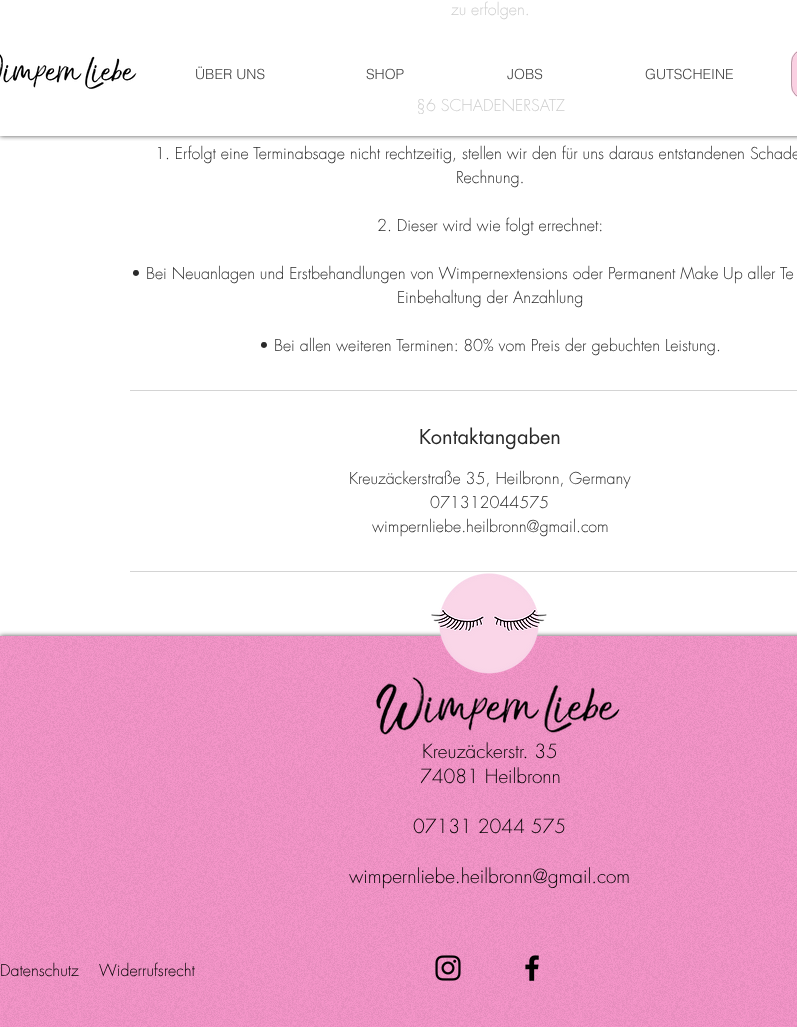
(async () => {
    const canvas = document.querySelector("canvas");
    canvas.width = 797;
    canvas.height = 1027;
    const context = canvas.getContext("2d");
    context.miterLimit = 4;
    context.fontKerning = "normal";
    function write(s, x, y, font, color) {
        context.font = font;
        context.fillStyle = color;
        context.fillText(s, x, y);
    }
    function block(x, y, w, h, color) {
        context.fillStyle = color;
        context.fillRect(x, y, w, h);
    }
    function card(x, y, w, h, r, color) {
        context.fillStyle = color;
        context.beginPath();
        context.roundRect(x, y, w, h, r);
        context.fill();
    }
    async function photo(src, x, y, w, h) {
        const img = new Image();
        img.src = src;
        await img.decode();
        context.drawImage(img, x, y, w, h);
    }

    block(0, 0, 797, 1027, "rgb(255, 255, 255)");
    write("zu erfolgen.", 451, 15, "300 16px futura", "rgb(206, 206, 206)");
    write("§6 SCHADENERSATZ", 416, 111, "300 16px futura", "rgb(206, 206, 206)");
    write("1. Erfolgt eine Terminabsage nicht rechtzeitig, stellen wir den für uns daraus entstandenen Schade", 155, 159, "300 16px futura", "rgb(42, 42, 42)");
    write("Rechnung.", 456, 183, "300 16px futura", "rgb(42, 42, 42)");
    write("2. Dieser wird wie folgt errechnet:", 377, 231, "300 16px futura", "rgb(42, 42, 42)");
    write("• Bei Neuanlagen und Erstbehandlungen von Wimpernextensions oder Permanent Make Up aller Te", 131, 279, "300 16px futura", "rgb(42, 42, 42)");
    write("Einbehaltung der Anzahlung", 397, 303, "300 16px futura", "rgb(42, 42, 42)");
    write("• Bei allen weiteren Terminen: 80% vom Preis der gebuchten Leistung.", 259, 351, "300 16px futura", "rgb(42, 42, 42)");
    block(130, 390, 667, 1, "rgb(212, 212, 212)");
    write("Kontaktangaben", 419, 444, "20px futura", "rgb(42, 42, 42)");
    write("Kreuzäckerstraße 35, Heilbronn, Germany", 349, 484, "300 16px futura", "rgb(42, 42, 42)");
    write("071312044575", 430, 508, "300 16px futura", "rgb(42, 42, 42)");
    write("wimpernliebe.heilbronn@gmail.com", 372, 532, "300 16px futura", "rgb(42, 42, 42)");
    block(130, 571, 667, 1, "rgb(212, 212, 212)");
    context.save();
    context.beginPath();
    context.rect(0, 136, 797, 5);
    context.clip();
    context.fillStyle = "rgba(0, 0, 0, 0.7)";
    context.filter = "blur(2.5px)";
    context.beginPath();
    context.rect(0, 0, 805, 136);
    context.fill();
    context.filter = "none";
    context.restore();
    await photo("media/1.png", 0, 54, 137, 35);
    block(420, 98, 125, 1, "rgba(255, 255, 255, 0.65)");
    write("ÜBER UNS", 195, 79, "300 14px helvetica", "rgb(68, 68, 68)");
    write("SHOP", 366, 79, "300 14px helvetica", "rgb(68, 68, 68)");
    write("JOBS", 507, 79, "300 14px helvetica", "rgb(68, 68, 68)");
    write("GUTSCHEINE", 645, 79, "300 14px helvetica", "rgb(68, 68, 68)");
    card(791, 49, 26, 50, 20, "rgb(250, 208, 226)");
    context.beginPath();
    context.roundRect(791.5, 49.5, 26, 49, 19.5);
    context.strokeStyle = "rgba(50, 50, 50, 0.33)";
    context.stroke();
    context.fillStyle = "rgba(0, 0, 0, 0.7)";
    context.filter = "blur(2.5px)";
    context.beginPath();
    context.rect(0, 636, 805, 391);
    context.fill();
    context.filter = "none";
    block(0, 636, 797, 391, "rgb(245, 149, 201)");
    await photo("media/2.png", 0, 636, 797, 391);
    await photo("media/3.png", 431, 573, 116, 101);
    await photo("media/4.png", 376, 677, 244, 58);
    write("Kreuzäckerstr. 35", 422, 758, "300 19px futura", "rgb(0, 0, 0)");
    write("74081 Heilbronn", 420, 783, "300 19px futura", "rgb(0, 0, 0)");
    write("07131 2044 575", 413, 833, "300 19px futura", "rgb(0, 0, 0)");
    write("wimpernliebe.heilbronn@gmail.com", 349, 883, "300 19px futura", "rgb(0, 0, 0)");
    write("Datenschutz", 0, 976, "300 16px futura", "rgb(0, 0, 0)");
    write("Widerrufsrecht", 99, 976, "300 16px futura", "rgb(0, 0, 0)");
    await photo("media/5.png", 435, 955, 26, 26);
    await photo("media/6.png", 525, 955, 14, 26);
})();
